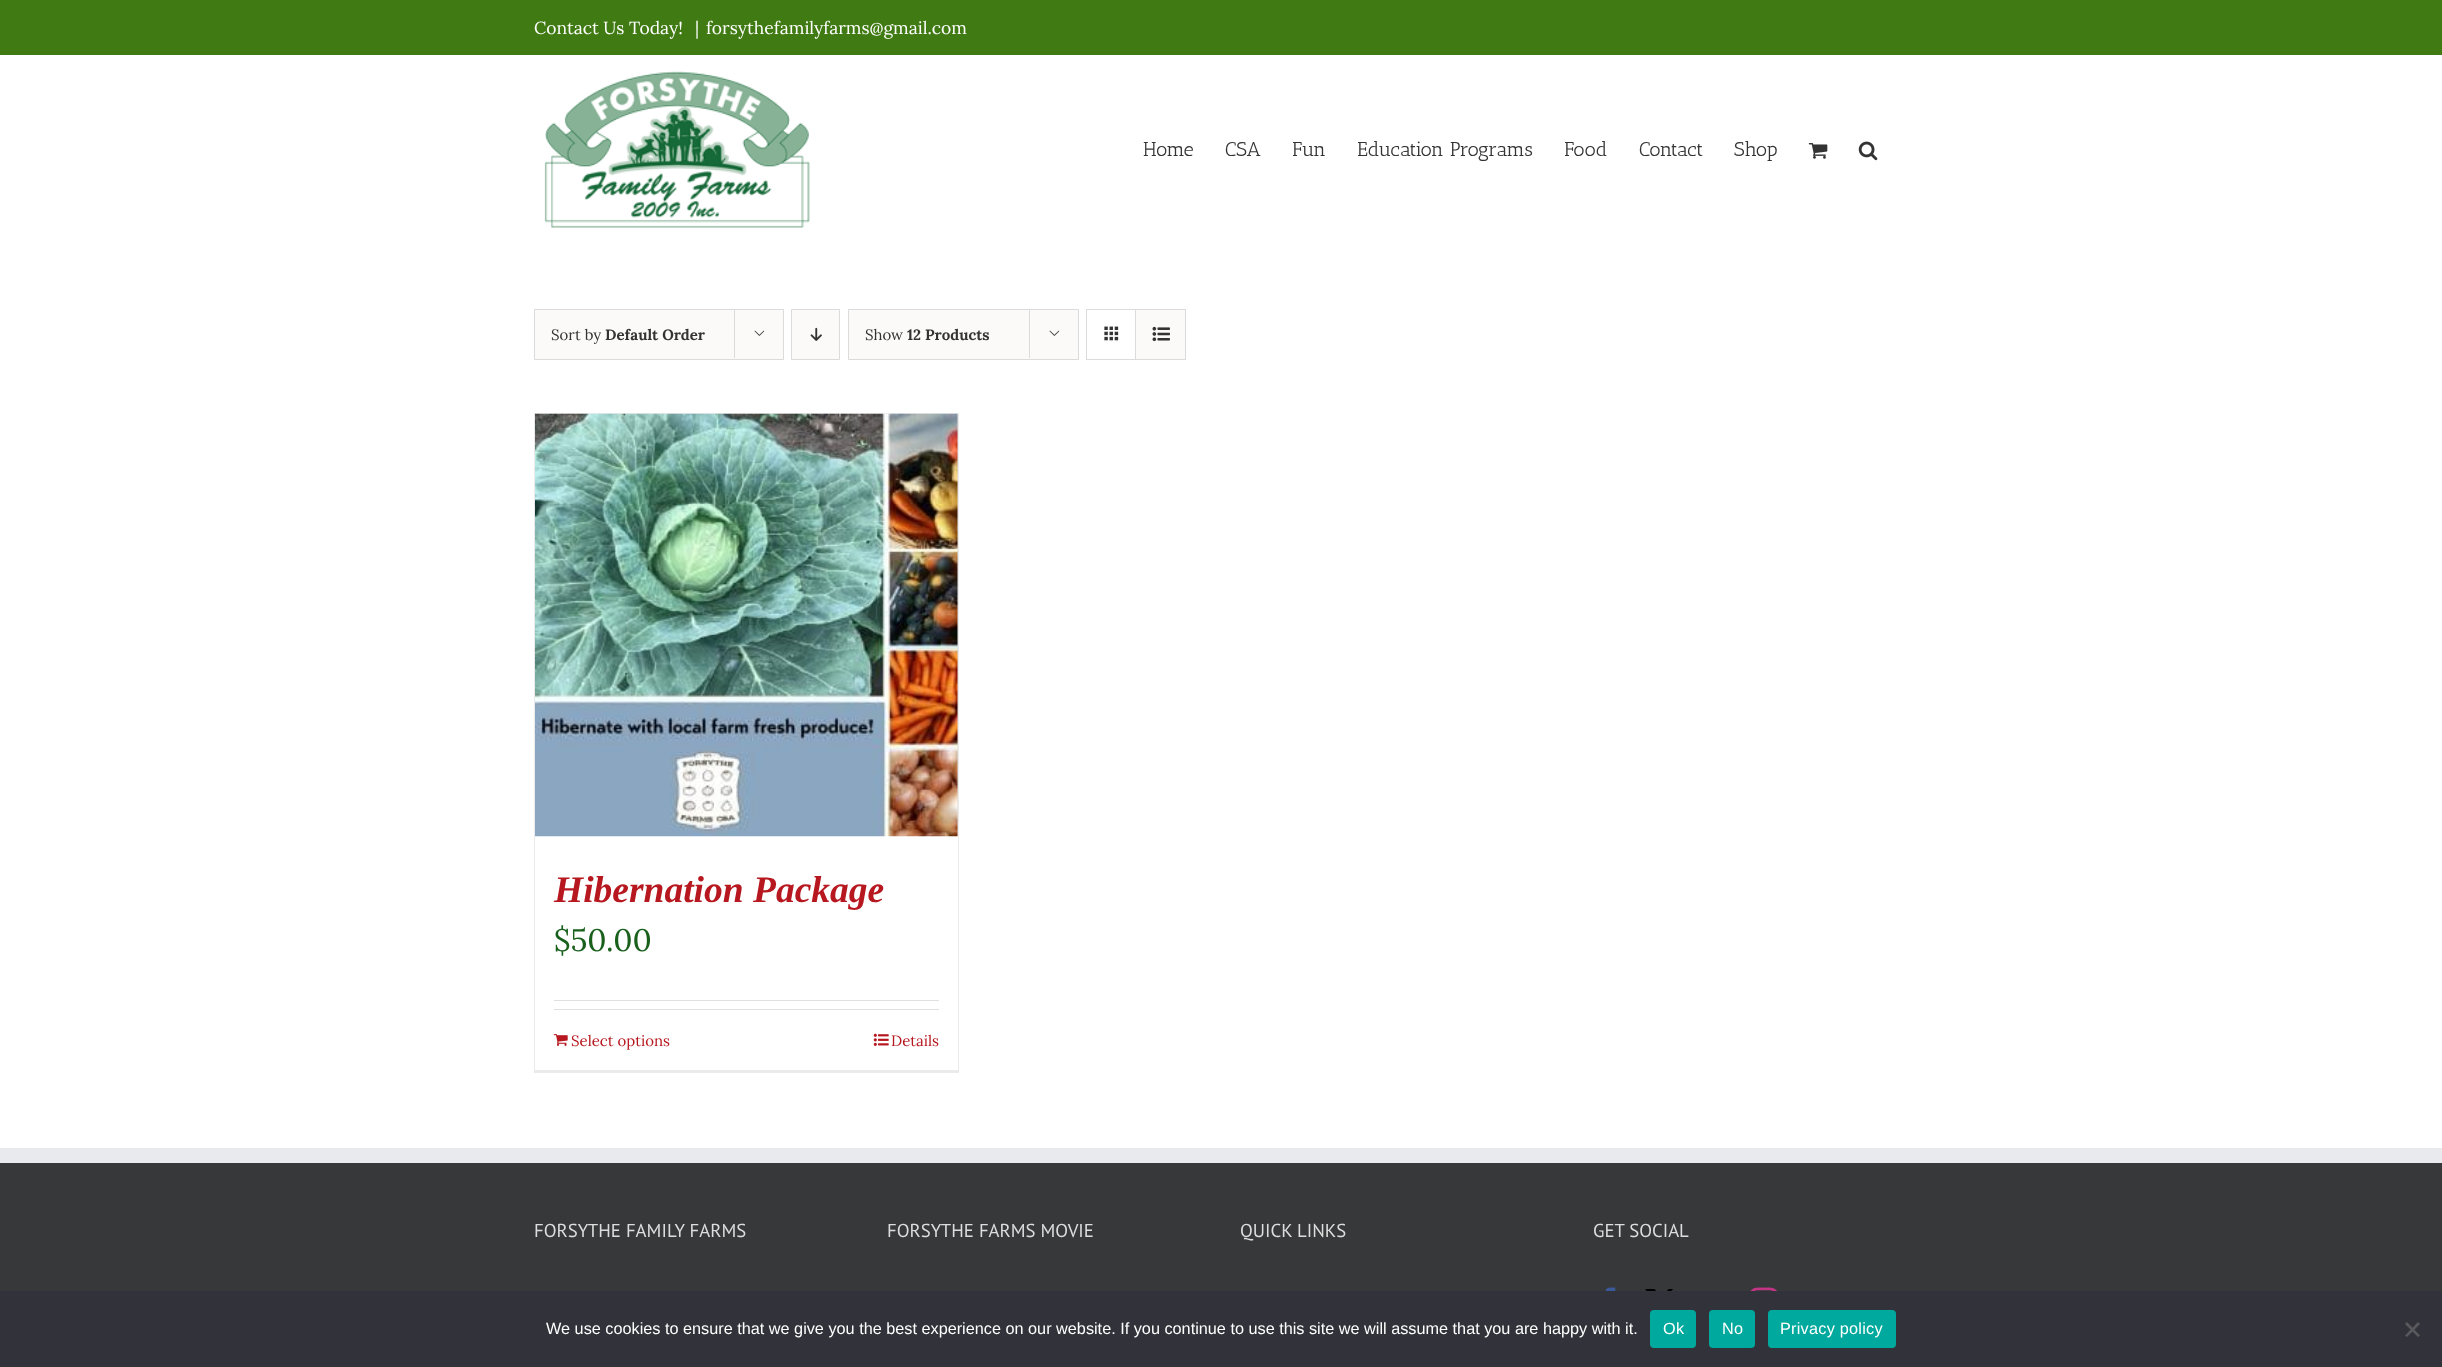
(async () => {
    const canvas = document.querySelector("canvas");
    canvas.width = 2442;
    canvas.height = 1367;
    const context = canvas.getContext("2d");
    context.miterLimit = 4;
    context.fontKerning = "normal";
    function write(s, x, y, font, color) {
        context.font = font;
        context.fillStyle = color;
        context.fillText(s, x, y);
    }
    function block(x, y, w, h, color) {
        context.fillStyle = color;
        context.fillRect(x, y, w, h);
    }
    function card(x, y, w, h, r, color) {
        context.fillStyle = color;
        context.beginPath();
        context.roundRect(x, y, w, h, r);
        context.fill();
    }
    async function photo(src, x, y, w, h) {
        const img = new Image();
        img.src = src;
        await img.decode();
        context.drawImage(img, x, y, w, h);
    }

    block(0, 0, 2442, 1367, "rgb(255, 255, 255)");
    block(0, 0, 2442, 55, "rgb(63, 122, 18)");
    write("Contact Us Today!", 534, 34, "17.5px Lora", "rgb(255, 255, 255)");
    write("|", 695, 34, "17.5px Lora", "rgb(255, 255, 255)");
    write("forsythefamilyfarms@gmail.com", 706, 34, "17.5px Lora", "rgb(255, 255, 255)");
    await photo("media/1.png", 544, 71, 266, 157);
    write("Home", 1143, 156, "20px Antic Slab", "rgb(51, 51, 51)");
    write("CSA", 1225, 156, "20px Antic Slab", "rgb(51, 51, 51)");
    write("Fun", 1292, 156, "20px Antic Slab", "rgb(51, 51, 51)");
    write("Education Programs", 1357, 156, "20px Antic Slab", "rgb(51, 51, 51)");
    write("Food", 1564, 156, "20px Antic Slab", "rgb(51, 51, 51)");
    write("Contact", 1639, 156, "20px Antic Slab", "rgb(51, 51, 51)");
    write("Shop", 1734, 156, "20px Antic Slab", "rgb(51, 51, 51)");
    await photo("media/2.png", 1808, 143, 20, 16);
    await photo("media/3.png", 1858, 141, 20, 20);
    context.fillStyle = "rgb(251, 250, 249)";
    context.beginPath();
    context.rect(534.5, 309.5, 249, 50);
    context.fill();
    context.strokeStyle = "rgb(219, 219, 219)";
    context.stroke();
    write("Sort by", 551, 340, "15px Lora", "rgb(51, 51, 51)");
    write("Default Order", 605, 340, "bold 15px Lora", "rgb(51, 51, 51)");
    block(734, 309, 1, 49, "rgb(219, 219, 219)");
    await photo("media/4.png", 754, 330, 11, 6);
    context.fillStyle = "rgb(251, 250, 249)";
    context.beginPath();
    context.rect(791.5, 309.5, 48, 50);
    context.fill();
    context.stroke();
    await photo("media/5.png", 810, 327, 12, 14);
    context.beginPath();
    context.rect(848.5, 309.5, 230, 50);
    context.fill();
    context.stroke();
    write("Show", 865, 340, "15px Lora", "rgb(51, 51, 51)");
    write("12 Products", 907, 340, "bold 15px Lora", "rgb(51, 51, 51)");
    block(1029, 309, 1, 49, "rgb(219, 219, 219)");
    await photo("media/4.png", 1049, 330, 11, 6);
    context.strokeRect(1086.5, 309.5, 99, 50);
    block(1135, 310, 1, 49, "rgb(219, 219, 219)");
    await photo("media/6.png", 1104, 326, 15, 15);
    block(1136, 310, 49, 49, "rgb(251, 250, 249)");
    await photo("media/7.png", 1152, 326, 18, 16);
    block(534, 413, 425, 1, "rgb(235, 234, 234)");
    block(958, 413, 1, 660, "rgb(235, 234, 234)");
    block(534, 1070, 425, 3, "rgb(235, 234, 234)");
    block(534, 413, 1, 660, "rgb(235, 234, 234)");
    block(957, 414, 1, 422, "rgb(224, 222, 222)");
    await photo("media/8.png", 535, 413, 423, 424);
    write("Hibernation Package", 554, 902, "italic bold 37.5px Liberation Serif", "rgb(183, 23, 31)");
    write("$50.00", 554, 951, "31px Lora", "rgb(24, 96, 27)");
    block(554, 1000, 385, 1, "rgb(224, 222, 222)");
    block(554, 1009, 385, 1, "rgb(224, 222, 222)");
    await photo("media/9.png", 553, 1034, 15, 12);
    write("Select options", 571, 1046, "15px Lora", "rgb(183, 23, 31)");
    await photo("media/10.png", 873, 1033, 16, 13);
    write("Details", 891, 1046, "15px Lora", "rgb(183, 23, 31)");
    block(0, 1163, 2442, 128, "rgb(54, 56, 57)");
    block(0, 1148, 2442, 15, "rgb(233, 234, 238)");
    write("FORSYTHE FAMILY FARMS", 534, 1237, "18.75px PT Sans", "rgb(221, 221, 221)");
    write("FORSYTHE FARMS MOVIE", 887, 1237, "18.75px PT Sans", "rgb(221, 221, 221)");
    write("QUICK LINKS", 1240, 1237, "18.75px PT Sans", "rgb(221, 221, 221)");
    write("GET SOCIAL", 1593, 1237, "18.75px PT Sans", "rgb(221, 221, 221)");
    await photo("media/11.png", 1605, 1287, 11, 4);
    await photo("media/12.png", 1645, 1289, 28, 2);
    await photo("media/13.png", 1750, 1287, 27, 4);
    block(0, 1291, 2442, 76, "rgb(50, 50, 58)");
    write("We use cookies to ensure that we give you the best experience on our website. If you continue to use this site we will assume that you are happy with it.", 546, 1334, "16.25px Liberation Sans", "rgb(255, 255, 255)");
    card(1650, 1310, 46, 38, 4, "rgb(0, 169, 157)");
    context.letterSpacing = "0.25px";
    write("Ok", 1663, 1334, "16.25px Liberation Sans", "rgb(255, 255, 255)");
    card(1709, 1310, 46, 38, 4, "rgb(0, 169, 157)");
    write("No", 1722, 1334, "16.25px Liberation Sans", "rgb(255, 255, 255)");
    card(1768, 1310, 128, 38, 4, "rgb(0, 169, 157)");
    write("Privacy policy", 1780, 1334, "16.25px Liberation Sans", "rgb(255, 255, 255)");
    context.fillStyle = "rgb(89, 89, 93)";
    context.beginPath();
    context.moveTo(2418, 1322);
    context.lineTo(2420, 1324);
    context.lineTo(2407, 1337);
    context.lineTo(2405, 1335.5);
    context.closePath();
    context.fill();
    context.beginPath();
    context.moveTo(2405, 1324);
    context.lineTo(2407, 1322);
    context.lineTo(2420, 1335.5);
    context.lineTo(2418, 1337);
    context.closePath();
    context.fill();
})();
